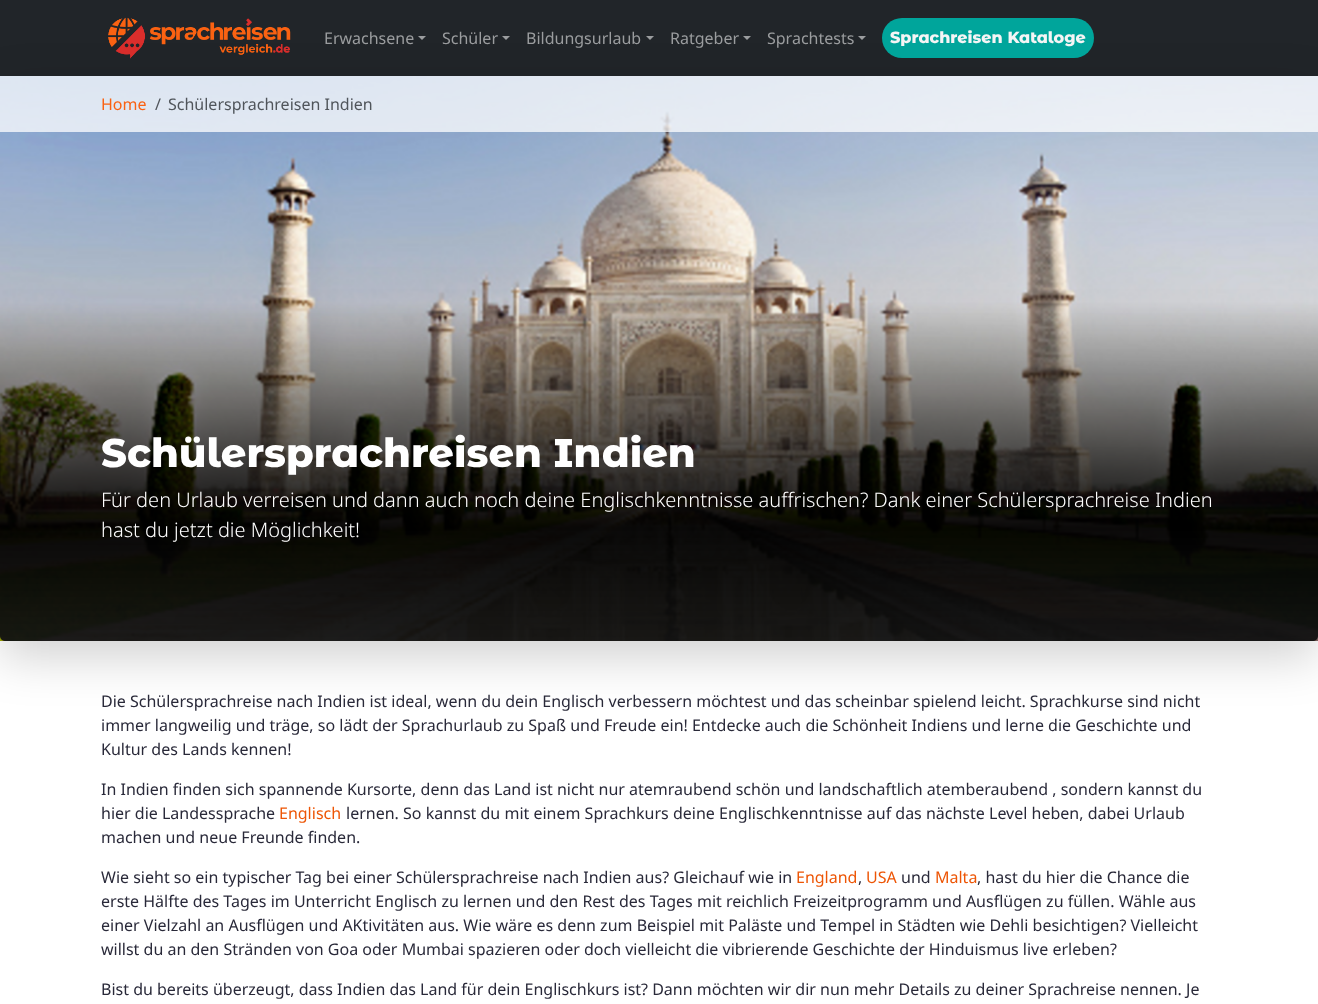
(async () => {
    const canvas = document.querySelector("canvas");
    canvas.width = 1318;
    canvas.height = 1004;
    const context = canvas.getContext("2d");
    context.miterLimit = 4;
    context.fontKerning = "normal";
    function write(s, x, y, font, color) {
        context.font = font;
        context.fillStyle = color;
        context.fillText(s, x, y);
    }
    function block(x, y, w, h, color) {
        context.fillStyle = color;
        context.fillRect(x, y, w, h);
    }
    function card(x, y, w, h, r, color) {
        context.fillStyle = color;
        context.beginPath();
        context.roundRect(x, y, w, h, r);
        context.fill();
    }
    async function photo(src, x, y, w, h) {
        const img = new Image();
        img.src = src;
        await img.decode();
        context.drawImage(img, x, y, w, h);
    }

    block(0, 0, 1318, 1004, "rgb(255, 255, 255)");
    block(0, 0, 1318, 76, "rgb(33, 37, 41)");
    await photo("media/1.png", 108, 17, 183, 42);
    write("Erwachsene", 324, 44, "16px Noto Sans", "rgb(155, 157, 159)");
    context.beginPath();
    context.moveTo(418, 36);
    context.lineTo(426, 36);
    context.lineTo(422, 40);
    context.closePath();
    context.fill();
    write("Schüler", 442, 44, "16px Noto Sans", "rgb(155, 157, 159)");
    context.beginPath();
    context.moveTo(502, 36);
    context.lineTo(510, 36);
    context.lineTo(506, 40);
    context.closePath();
    context.fill();
    write("Bildungsurlaub", 526, 44, "16px Noto Sans", "rgb(155, 157, 159)");
    context.beginPath();
    context.moveTo(646, 36);
    context.lineTo(654, 36);
    context.lineTo(650, 40);
    context.closePath();
    context.fill();
    write("Ratgeber", 670, 44, "16px Noto Sans", "rgb(155, 157, 159)");
    context.beginPath();
    context.moveTo(743, 36);
    context.lineTo(751, 36);
    context.lineTo(747, 40);
    context.closePath();
    context.fill();
    write("Sprachtests", 767, 44, "16px Noto Sans", "rgb(155, 157, 159)");
    context.beginPath();
    context.moveTo(858, 36);
    context.lineTo(866, 36);
    context.lineTo(862, 40);
    context.closePath();
    context.fill();
    context.fillStyle = "rgba(0, 0, 0, 0.18)";
    context.filter = "blur(24px)";
    context.beginPath();
    context.rect(0, 92, 1318, 565);
    context.fill();
    context.filter = "none";
    card(882, 18, 212, 40, 20, "rgb(0, 165, 155)");
    write("Sprachreisen Kataloge", 890, 43, "800 16px Montserrat Alternates", "rgb(245, 245, 245)");
    await photo("media/2.png", 0, 76, 1318, 565);
    block(0, 76, 1318, 56, "rgba(255, 255, 255, 0.75)");
    write("Home", 101, 110, "16px Noto Sans", "rgb(250, 98, 18)");
    write("/", 155, 110, "16px Noto Sans", "rgb(80, 85, 91)");
    write("Schülersprachreisen Indien", 168, 110, "16px Noto Sans", "rgb(80, 85, 91)");
    write("Schülersprachreisen Indien", 101, 467, "800 40px Montserrat Alternates", "rgb(255, 255, 255)");
    write("Für den Urlaub verreisen und dann auch noch deine Englischkenntnisse auffrischen? Dank einer Schülersprachreise Indien", 101, 507, "300 20px Noto Sans", "rgb(255, 255, 255)");
    write("hast du jetzt die Möglichkeit!", 101, 537, "300 20px Noto Sans", "rgb(255, 255, 255)");
    write("Die Schülersprachreise nach Indien ist ideal, wenn du dein Englisch verbessern möchtest und das scheinbar spielend leicht. Sprachkurse sind nicht", 101, 707, "16px Noto Sans", "rgb(41, 41, 57)");
    write("immer langweilig und träge, so lädt der Sprachurlaub zu Spaß und Freude ein! Entdecke auch die Schönheit Indiens und lerne die Geschichte und", 101, 731, "16px Noto Sans", "rgb(41, 41, 57)");
    write("Kultur des Lands kennen!", 101, 755, "16px Noto Sans", "rgb(41, 41, 57)");
    write("In Indien finden sich spannende Kursorte, denn das Land ist nicht nur atemraubend schön und landschaftlich atemberaubend , sondern kannst du", 101, 795, "16px Noto Sans", "rgb(41, 41, 57)");
    write("hier die Landessprache", 101, 819, "16px Noto Sans", "rgb(41, 41, 57)");
    write("Englisch", 279, 819, "16px Noto Sans", "rgb(237, 85, 5)");
    write("lernen. So kannst du mit einem Sprachkurs deine Englischkenntnisse auf das nächste Level heben, dabei Urlaub", 346, 819, "16px Noto Sans", "rgb(41, 41, 57)");
    write("machen und neue Freunde finden.", 101, 843, "16px Noto Sans", "rgb(41, 41, 57)");
    write("Wie sieht so ein typischer Tag bei einer Schülersprachreise nach Indien aus? Gleichauf wie in", 101, 883, "16px Noto Sans", "rgb(41, 41, 57)");
    write("England", 796, 883, "16px Noto Sans", "rgb(237, 85, 5)");
    write(",", 858, 883, "16px Noto Sans", "rgb(41, 41, 57)");
    write("USA", 866, 883, "16px Noto Sans", "rgb(237, 85, 5)");
    write("und", 901, 883, "16px Noto Sans", "rgb(41, 41, 57)");
    write("Malta", 935, 883, "16px Noto Sans", "rgb(237, 85, 5)");
    write(", hast du hier die Chance die", 977, 883, "16px Noto Sans", "rgb(41, 41, 57)");
    write("erste Hälfte des Tages im Unterricht Englisch zu lernen und den Rest des Tages mit reichlich Freizeitprogramm und Ausflügen zu füllen. Wähle aus", 101, 907, "16px Noto Sans", "rgb(41, 41, 57)");
    write("einer Vielzahl an Ausflügen und AKtivitäten aus. Wie wäre es denn zum Beispiel mit Paläste und Tempel in Städten wie Dehli besichtigen? Vielleicht", 101, 931, "16px Noto Sans", "rgb(41, 41, 57)");
    write("willst du an den Stränden von Goa oder Mumbai spazieren oder doch vielleicht die vibrierende Geschichte der Hinduismus live erleben?", 101, 955, "16px Noto Sans", "rgb(41, 41, 57)");
    write("Bist du bereits überzeugt, dass Indien das Land für dein Englischkurs ist? Dann möchten wir dir nun mehr Details zu deiner Sprachreise nennen. Je", 101, 995, "16px Noto Sans", "rgb(41, 41, 57)");
})();
